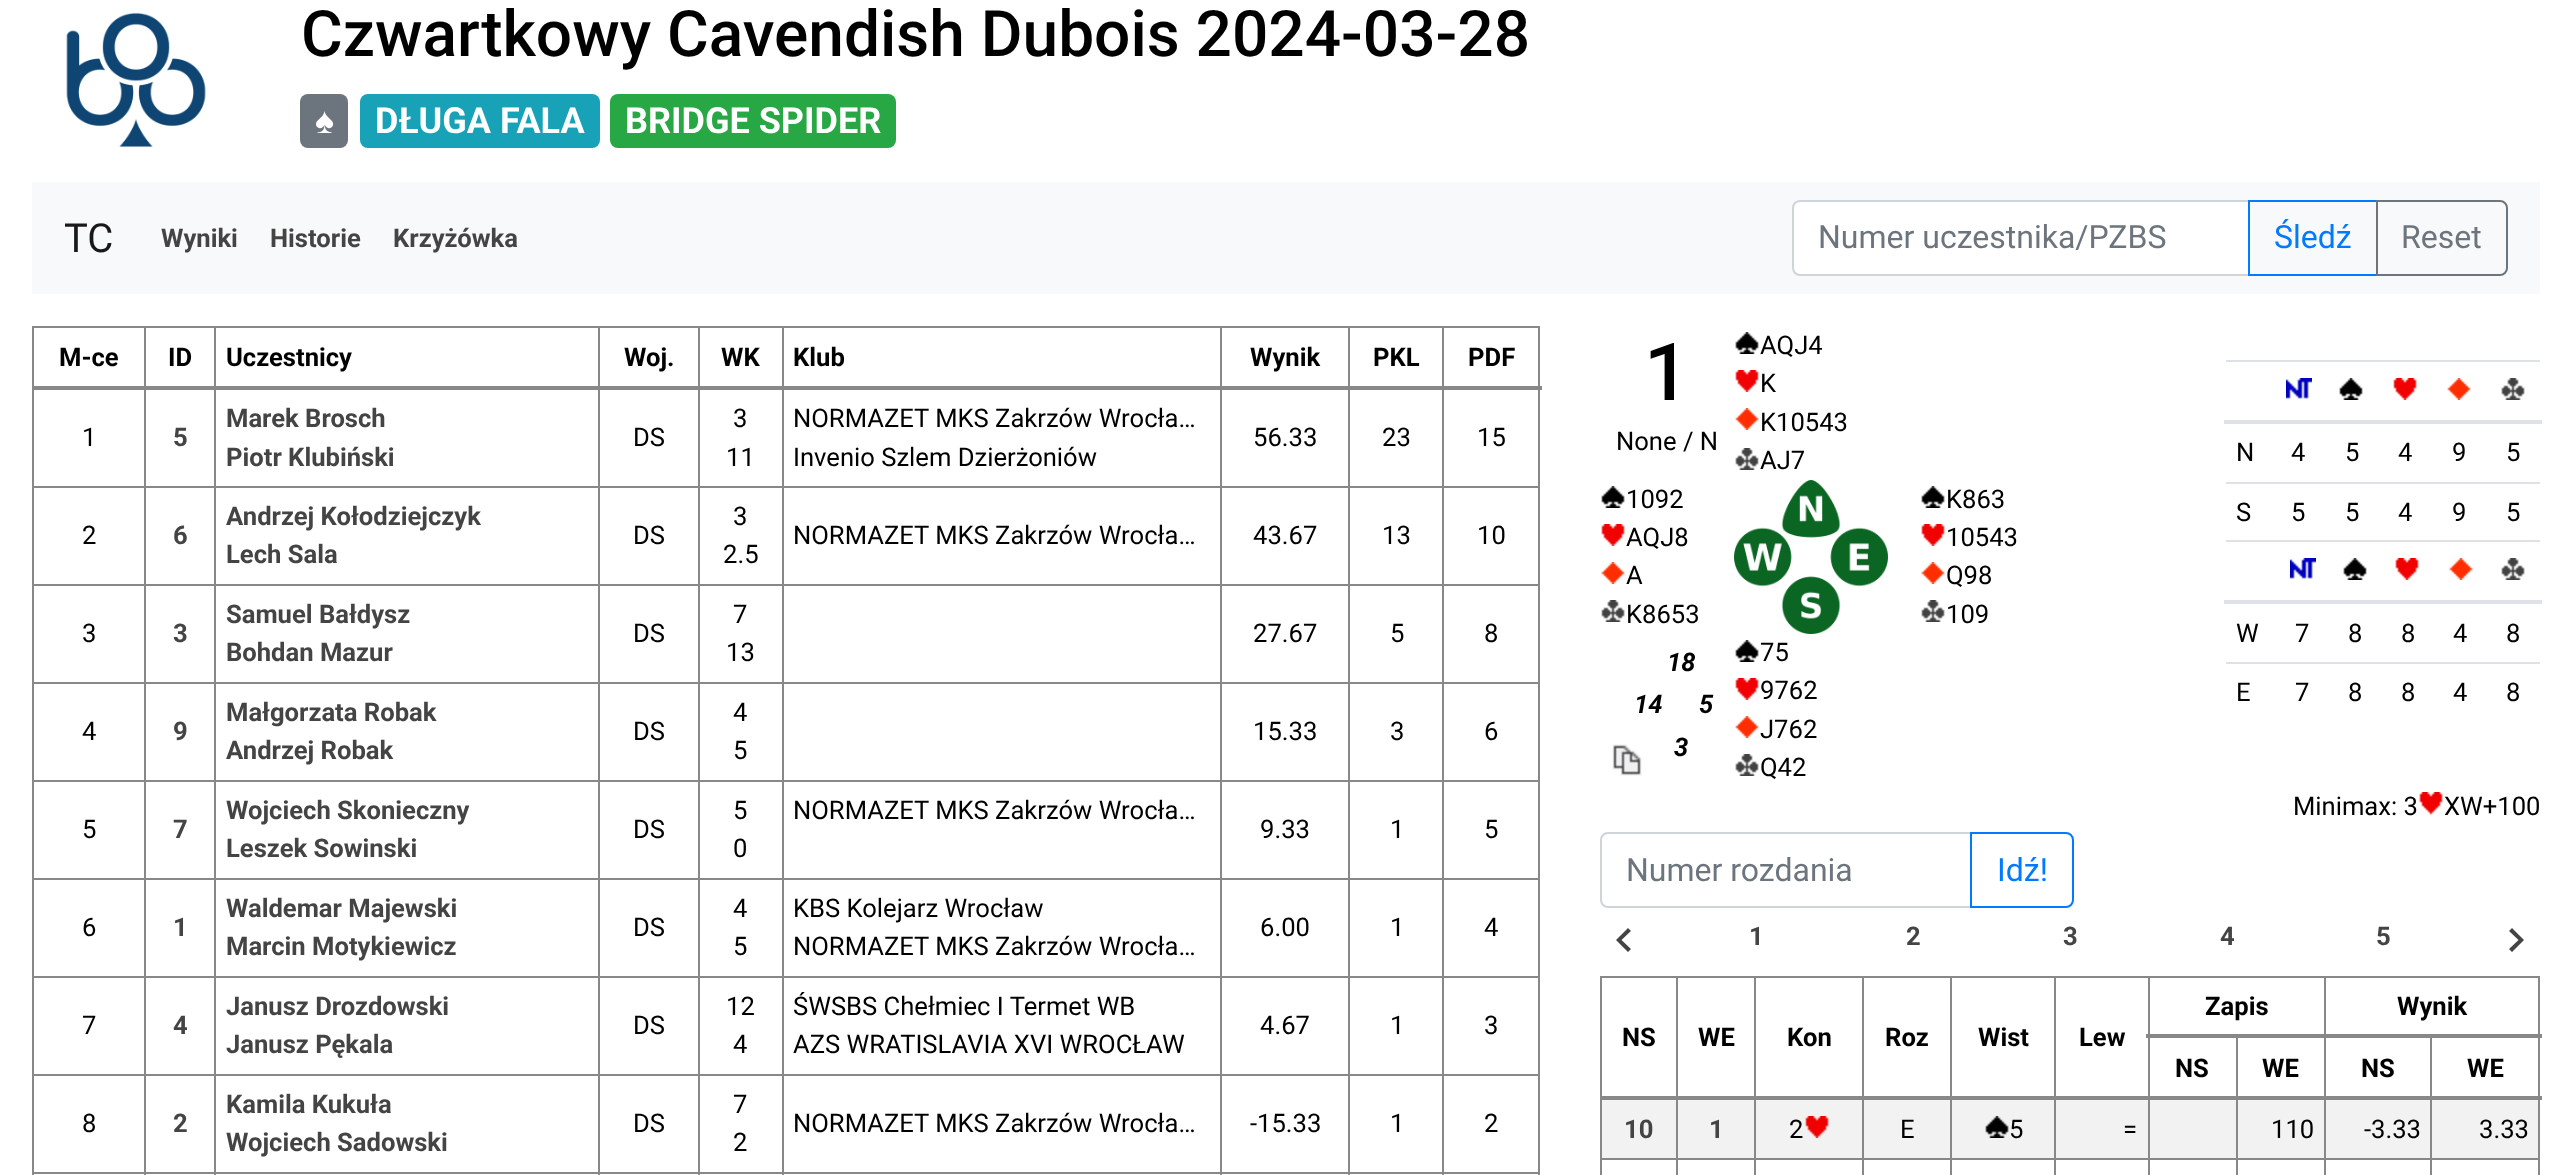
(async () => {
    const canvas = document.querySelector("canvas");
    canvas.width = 2572;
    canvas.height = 1175;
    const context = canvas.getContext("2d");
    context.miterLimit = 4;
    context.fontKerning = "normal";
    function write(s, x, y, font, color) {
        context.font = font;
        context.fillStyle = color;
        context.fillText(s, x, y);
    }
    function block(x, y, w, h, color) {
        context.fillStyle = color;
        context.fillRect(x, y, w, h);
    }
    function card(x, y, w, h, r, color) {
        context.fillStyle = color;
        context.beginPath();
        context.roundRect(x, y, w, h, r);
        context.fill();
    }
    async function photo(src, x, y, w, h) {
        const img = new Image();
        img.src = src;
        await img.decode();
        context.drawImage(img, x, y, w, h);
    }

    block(0, 0, 2572, 1175, "rgb(255, 255, 255)");
    await photo("media/1.png", 66, 12, 140, 136);
    write("Czwartkowy Cavendish Dubois 2024-03-28", 301, 56, "500 64px Roboto", "rgb(0, 0, 0)");
    card(300, 94, 48, 54, 8, "rgb(108, 117, 125)");
    write("♠", 315, 133, "bold 36px Liberation Sans", "rgb(255, 255, 255)");
    card(360, 94, 240, 54, 8, "rgb(23, 162, 184)");
    write("DŁUGA FALA", 375, 133, "bold 36px Roboto", "rgb(255, 255, 255)");
    card(610, 94, 286, 54, 8, "rgb(40, 167, 69)");
    write("BRIDGE SPIDER", 625, 133, "bold 36px Roboto", "rgb(255, 255, 255)");
    block(32, 182, 2508, 112, "rgb(248, 249, 250)");
    write("TC", 64, 252, "40px Roboto", "rgb(25, 25, 25)");
    write("Wyniki", 161, 247, "bold 25.6px Roboto", "rgb(68, 68, 68)");
    write("Historie", 270, 247, "bold 25.6px Roboto", "rgb(68, 68, 68)");
    write("Krzyżówka", 393, 247, "bold 25.6px Roboto", "rgb(68, 68, 68)");
    context.fillStyle = "rgb(255, 255, 255)";
    context.beginPath();
    context.roundRect(1793, 201, 456, 74, [7, 0, 0, 7]);
    context.fill();
    context.strokeStyle = "rgb(206, 212, 218)";
    context.lineWidth = 2;
    context.stroke();
    write("Numer uczestnika/PZBS", 1818, 248, "32px Roboto", "rgb(108, 117, 125)");
    context.strokeStyle = "rgb(0, 123, 255)";
    context.strokeRect(2249, 201, 128, 74);
    write("Śledź", 2274, 248, "32px Roboto", "rgb(0, 123, 255)");
    context.beginPath();
    context.roundRect(2377, 201, 130, 74, [0, 7, 7, 0]);
    context.strokeStyle = "rgb(108, 117, 125)";
    context.stroke();
    write("Reset", 2401, 248, "32px Roboto", "rgb(108, 117, 125)");
    block(32, 326, 1508, 2, "rgb(136, 136, 136)");
    block(1538, 326, 2, 849, "rgb(136, 136, 136)");
    block(32, 326, 2, 849, "rgb(136, 136, 136)");
    write("M-ce", 59, 366, "bold 25.6px Roboto", "rgb(0, 0, 0)");
    write("ID", 168, 366, "bold 25.6px Roboto", "rgb(0, 0, 0)");
    write("Uczestnicy", 226, 366, "bold 25.6px Roboto", "rgb(0, 0, 0)");
    write("Woj.", 624, 366, "bold 25.6px Roboto", "rgb(0, 0, 0)");
    write("WK", 721, 366, "bold 25.6px Roboto", "rgb(0, 0, 0)");
    write("Klub", 793, 366, "bold 25.6px Roboto", "rgb(0, 0, 0)");
    write("Wynik", 1250, 366, "bold 25.6px Roboto", "rgb(0, 0, 0)");
    write("PKL", 1373, 366, "bold 25.6px Roboto", "rgb(0, 0, 0)");
    block(1442, 486, 98, 2, "rgb(136, 136, 136)");
    block(1442, 584, 98, 2, "rgb(136, 136, 136)");
    block(1442, 682, 98, 2, "rgb(136, 136, 136)");
    block(1442, 780, 98, 2, "rgb(136, 136, 136)");
    block(1442, 878, 98, 2, "rgb(136, 136, 136)");
    block(1442, 976, 98, 2, "rgb(136, 136, 136)");
    block(1442, 1074, 98, 2, "rgb(136, 136, 136)");
    block(1442, 1172, 98, 2, "rgb(136, 136, 136)");
    block(1442, 1172, 2, 3, "rgb(136, 136, 136)");
    block(1348, 1172, 96, 2, "rgb(136, 136, 136)");
    block(1442, 1074, 2, 100, "rgb(136, 136, 136)");
    block(1348, 1074, 96, 2, "rgb(136, 136, 136)");
    block(1442, 976, 2, 100, "rgb(136, 136, 136)");
    block(1348, 976, 96, 2, "rgb(136, 136, 136)");
    block(1442, 878, 2, 100, "rgb(136, 136, 136)");
    block(1348, 878, 96, 2, "rgb(136, 136, 136)");
    block(1442, 780, 2, 100, "rgb(136, 136, 136)");
    block(1348, 780, 96, 2, "rgb(136, 136, 136)");
    block(1442, 682, 2, 100, "rgb(136, 136, 136)");
    block(1348, 682, 96, 2, "rgb(136, 136, 136)");
    block(1442, 584, 2, 100, "rgb(136, 136, 136)");
    block(1348, 584, 96, 2, "rgb(136, 136, 136)");
    block(1442, 486, 2, 100, "rgb(136, 136, 136)");
    block(1348, 486, 96, 2, "rgb(136, 136, 136)");
    block(1348, 1172, 2, 3, "rgb(136, 136, 136)");
    block(1220, 1172, 130, 2, "rgb(136, 136, 136)");
    block(1348, 1074, 2, 100, "rgb(136, 136, 136)");
    block(1220, 1074, 130, 2, "rgb(136, 136, 136)");
    block(1348, 976, 2, 100, "rgb(136, 136, 136)");
    block(1220, 976, 130, 2, "rgb(136, 136, 136)");
    block(1348, 878, 2, 100, "rgb(136, 136, 136)");
    block(1220, 878, 130, 2, "rgb(136, 136, 136)");
    block(1348, 780, 2, 100, "rgb(136, 136, 136)");
    block(1220, 780, 130, 2, "rgb(136, 136, 136)");
    block(1348, 682, 2, 100, "rgb(136, 136, 136)");
    block(1220, 682, 130, 2, "rgb(136, 136, 136)");
    block(1348, 584, 2, 100, "rgb(136, 136, 136)");
    block(1220, 584, 130, 2, "rgb(136, 136, 136)");
    block(1348, 486, 2, 100, "rgb(136, 136, 136)");
    block(1220, 486, 130, 2, "rgb(136, 136, 136)");
    block(1220, 1172, 2, 3, "rgb(136, 136, 136)");
    block(782, 1172, 440, 2, "rgb(136, 136, 136)");
    block(1220, 1074, 2, 100, "rgb(136, 136, 136)");
    block(782, 1074, 440, 2, "rgb(136, 136, 136)");
    block(1220, 976, 2, 100, "rgb(136, 136, 136)");
    block(782, 976, 440, 2, "rgb(136, 136, 136)");
    block(1220, 878, 2, 100, "rgb(136, 136, 136)");
    block(782, 878, 440, 2, "rgb(136, 136, 136)");
    block(1220, 780, 2, 100, "rgb(136, 136, 136)");
    block(782, 780, 440, 2, "rgb(136, 136, 136)");
    block(1220, 682, 2, 100, "rgb(136, 136, 136)");
    block(782, 682, 440, 2, "rgb(136, 136, 136)");
    block(1220, 584, 2, 100, "rgb(136, 136, 136)");
    block(782, 584, 440, 2, "rgb(136, 136, 136)");
    block(1220, 486, 2, 100, "rgb(136, 136, 136)");
    block(782, 486, 440, 2, "rgb(136, 136, 136)");
    block(782, 1172, 2, 3, "rgb(136, 136, 136)");
    block(698, 1172, 86, 2, "rgb(136, 136, 136)");
    block(782, 1074, 2, 100, "rgb(136, 136, 136)");
    block(698, 1074, 86, 2, "rgb(136, 136, 136)");
    block(782, 976, 2, 100, "rgb(136, 136, 136)");
    block(698, 976, 86, 2, "rgb(136, 136, 136)");
    block(782, 878, 2, 100, "rgb(136, 136, 136)");
    block(698, 878, 86, 2, "rgb(136, 136, 136)");
    block(782, 780, 2, 100, "rgb(136, 136, 136)");
    block(698, 780, 86, 2, "rgb(136, 136, 136)");
    block(782, 682, 2, 100, "rgb(136, 136, 136)");
    block(698, 682, 86, 2, "rgb(136, 136, 136)");
    block(782, 584, 2, 100, "rgb(136, 136, 136)");
    block(698, 584, 86, 2, "rgb(136, 136, 136)");
    block(782, 486, 2, 100, "rgb(136, 136, 136)");
    block(698, 486, 86, 2, "rgb(136, 136, 136)");
    block(698, 1172, 2, 3, "rgb(136, 136, 136)");
    block(598, 1172, 102, 2, "rgb(136, 136, 136)");
    block(698, 1074, 2, 100, "rgb(136, 136, 136)");
    block(598, 1074, 102, 2, "rgb(136, 136, 136)");
    block(698, 976, 2, 100, "rgb(136, 136, 136)");
    block(598, 976, 102, 2, "rgb(136, 136, 136)");
    block(698, 878, 2, 100, "rgb(136, 136, 136)");
    block(598, 878, 102, 2, "rgb(136, 136, 136)");
    block(698, 780, 2, 100, "rgb(136, 136, 136)");
    block(598, 780, 102, 2, "rgb(136, 136, 136)");
    block(698, 682, 2, 100, "rgb(136, 136, 136)");
    block(598, 682, 102, 2, "rgb(136, 136, 136)");
    block(698, 584, 2, 100, "rgb(136, 136, 136)");
    block(598, 584, 102, 2, "rgb(136, 136, 136)");
    block(698, 486, 2, 100, "rgb(136, 136, 136)");
    block(598, 486, 102, 2, "rgb(136, 136, 136)");
    block(598, 1172, 2, 3, "rgb(136, 136, 136)");
    block(214, 1172, 386, 2, "rgb(136, 136, 136)");
    block(598, 1074, 2, 100, "rgb(136, 136, 136)");
    block(214, 1074, 386, 2, "rgb(136, 136, 136)");
    block(598, 976, 2, 100, "rgb(136, 136, 136)");
    block(214, 976, 386, 2, "rgb(136, 136, 136)");
    block(598, 878, 2, 100, "rgb(136, 136, 136)");
    block(214, 878, 386, 2, "rgb(136, 136, 136)");
    block(598, 780, 2, 100, "rgb(136, 136, 136)");
    block(214, 780, 386, 2, "rgb(136, 136, 136)");
    block(598, 682, 2, 100, "rgb(136, 136, 136)");
    block(214, 682, 386, 2, "rgb(136, 136, 136)");
    block(598, 584, 2, 100, "rgb(136, 136, 136)");
    block(214, 584, 386, 2, "rgb(136, 136, 136)");
    block(598, 486, 2, 100, "rgb(136, 136, 136)");
    block(214, 486, 386, 2, "rgb(136, 136, 136)");
    block(214, 1172, 2, 3, "rgb(136, 136, 136)");
    block(144, 1172, 72, 2, "rgb(136, 136, 136)");
    block(214, 1074, 2, 100, "rgb(136, 136, 136)");
    block(144, 1074, 72, 2, "rgb(136, 136, 136)");
    block(214, 976, 2, 100, "rgb(136, 136, 136)");
    block(144, 976, 72, 2, "rgb(136, 136, 136)");
    block(214, 878, 2, 100, "rgb(136, 136, 136)");
    block(144, 878, 72, 2, "rgb(136, 136, 136)");
    block(214, 780, 2, 100, "rgb(136, 136, 136)");
    block(144, 780, 72, 2, "rgb(136, 136, 136)");
    block(214, 682, 2, 100, "rgb(136, 136, 136)");
    block(144, 682, 72, 2, "rgb(136, 136, 136)");
    block(214, 584, 2, 100, "rgb(136, 136, 136)");
    block(144, 584, 72, 2, "rgb(136, 136, 136)");
    block(214, 486, 2, 100, "rgb(136, 136, 136)");
    block(144, 486, 72, 2, "rgb(136, 136, 136)");
    block(144, 1172, 2, 3, "rgb(136, 136, 136)");
    block(32, 1172, 114, 2, "rgb(136, 136, 136)");
    block(144, 1074, 2, 100, "rgb(136, 136, 136)");
    block(32, 1074, 114, 2, "rgb(136, 136, 136)");
    block(144, 976, 2, 100, "rgb(136, 136, 136)");
    block(32, 976, 114, 2, "rgb(136, 136, 136)");
    block(144, 878, 2, 100, "rgb(136, 136, 136)");
    block(32, 878, 114, 2, "rgb(136, 136, 136)");
    block(144, 780, 2, 100, "rgb(136, 136, 136)");
    block(32, 780, 114, 2, "rgb(136, 136, 136)");
    block(144, 682, 2, 100, "rgb(136, 136, 136)");
    block(32, 682, 114, 2, "rgb(136, 136, 136)");
    block(144, 584, 2, 100, "rgb(136, 136, 136)");
    block(32, 584, 114, 2, "rgb(136, 136, 136)");
    block(144, 486, 2, 100, "rgb(136, 136, 136)");
    block(32, 486, 114, 2, "rgb(136, 136, 136)");
    block(144, 326, 2, 162, "rgb(136, 136, 136)");
    block(214, 326, 2, 162, "rgb(136, 136, 136)");
    block(598, 326, 2, 162, "rgb(136, 136, 136)");
    block(698, 326, 2, 162, "rgb(136, 136, 136)");
    block(782, 326, 2, 162, "rgb(136, 136, 136)");
    block(1220, 326, 2, 162, "rgb(136, 136, 136)");
    block(1348, 326, 2, 162, "rgb(136, 136, 136)");
    block(1442, 326, 2, 162, "rgb(136, 136, 136)");
    block(32, 386, 1510, 4, "rgb(136, 136, 136)");
    write("PDF", 1468, 366, "bold 25.6px Roboto", "rgb(0, 0, 0)");
    write("1", 82, 446, "25.6px Roboto", "rgb(0, 0, 0)");
    write("5", 173, 446, "bold 25.6px Roboto", "rgb(68, 68, 68)");
    write("Marek Brosch", 226, 427, "bold 25.6px Roboto", "rgb(68, 68, 68)");
    write("Piotr Klubiński", 226, 466, "bold 25.6px Roboto", "rgb(68, 68, 68)");
    write("DS", 633, 446, "25.6px Roboto", "rgb(0, 0, 0)");
    write("3", 733, 427, "25.6px Roboto", "rgb(0, 0, 0)");
    write("11", 726, 466, "25.6px Roboto", "rgb(0, 0, 0)");
    write("NORMAZET MKS Zakrzów Wrocła…", 793, 427, "25.6px Roboto", "rgb(0, 0, 0)");
    write("Invenio Szlem Dzierżoniów", 793, 466, "25.6px Roboto", "rgb(0, 0, 0)");
    write("56.33", 1253, 446, "25.6px Roboto", "rgb(0, 0, 0)");
    write("23", 1382, 446, "25.6px Roboto", "rgb(0, 0, 0)");
    write("15", 1477, 446, "25.6px Roboto", "rgb(0, 0, 0)");
    write("2", 82, 544, "25.6px Roboto", "rgb(0, 0, 0)");
    write("6", 173, 544, "bold 25.6px Roboto", "rgb(68, 68, 68)");
    write("Andrzej Kołodziejczyk", 226, 525, "bold 25.6px Roboto", "rgb(68, 68, 68)");
    write("Lech Sala", 226, 563, "bold 25.6px Roboto", "rgb(68, 68, 68)");
    write("DS", 633, 544, "25.6px Roboto", "rgb(0, 0, 0)");
    write("3", 733, 525, "25.6px Roboto", "rgb(0, 0, 0)");
    write("2.5", 723, 563, "25.6px Roboto", "rgb(0, 0, 0)");
    write("NORMAZET MKS Zakrzów Wrocła…", 793, 544, "25.6px Roboto", "rgb(0, 0, 0)");
    write("43.67", 1253, 544, "25.6px Roboto", "rgb(0, 0, 0)");
    write("13", 1382, 544, "25.6px Roboto", "rgb(0, 0, 0)");
    write("10", 1477, 544, "25.6px Roboto", "rgb(0, 0, 0)");
    write("3", 82, 642, "25.6px Roboto", "rgb(0, 0, 0)");
    write("3", 173, 642, "bold 25.6px Roboto", "rgb(68, 68, 68)");
    write("Samuel Bałdysz", 226, 623, "bold 25.6px Roboto", "rgb(68, 68, 68)");
    write("Bohdan Mazur", 226, 661, "bold 25.6px Roboto", "rgb(68, 68, 68)");
    write("DS", 633, 642, "25.6px Roboto", "rgb(0, 0, 0)");
    write("7", 733, 623, "25.6px Roboto", "rgb(0, 0, 0)");
    write("13", 726, 661, "25.6px Roboto", "rgb(0, 0, 0)");
    write("27.67", 1253, 642, "25.6px Roboto", "rgb(0, 0, 0)");
    write("5", 1390, 642, "25.6px Roboto", "rgb(0, 0, 0)");
    write("8", 1484, 642, "25.6px Roboto", "rgb(0, 0, 0)");
    write("4", 82, 740, "25.6px Roboto", "rgb(0, 0, 0)");
    write("9", 173, 740, "bold 25.6px Roboto", "rgb(68, 68, 68)");
    write("Małgorzata Robak", 226, 721, "bold 25.6px Roboto", "rgb(68, 68, 68)");
    write("Andrzej Robak", 226, 759, "bold 25.6px Roboto", "rgb(68, 68, 68)");
    write("DS", 633, 740, "25.6px Roboto", "rgb(0, 0, 0)");
    write("4", 733, 721, "25.6px Roboto", "rgb(0, 0, 0)");
    write("5", 733, 759, "25.6px Roboto", "rgb(0, 0, 0)");
    write("15.33", 1253, 740, "25.6px Roboto", "rgb(0, 0, 0)");
    write("3", 1390, 740, "25.6px Roboto", "rgb(0, 0, 0)");
    write("6", 1484, 740, "25.6px Roboto", "rgb(0, 0, 0)");
    write("5", 82, 838, "25.6px Roboto", "rgb(0, 0, 0)");
    write("7", 173, 838, "bold 25.6px Roboto", "rgb(68, 68, 68)");
    write("Wojciech Skonieczny", 226, 819, "bold 25.6px Roboto", "rgb(68, 68, 68)");
    write("Leszek Sowinski", 226, 857, "bold 25.6px Roboto", "rgb(68, 68, 68)");
    write("DS", 633, 838, "25.6px Roboto", "rgb(0, 0, 0)");
    write("5", 733, 819, "25.6px Roboto", "rgb(0, 0, 0)");
    write("0", 733, 857, "25.6px Roboto", "rgb(0, 0, 0)");
    write("NORMAZET MKS Zakrzów Wrocła…", 793, 819, "25.6px Roboto", "rgb(0, 0, 0)");
    write("9.33", 1260, 838, "25.6px Roboto", "rgb(0, 0, 0)");
    write("1", 1390, 838, "25.6px Roboto", "rgb(0, 0, 0)");
    write("5", 1484, 838, "25.6px Roboto", "rgb(0, 0, 0)");
    write("6", 82, 936, "25.6px Roboto", "rgb(0, 0, 0)");
    write("1", 173, 936, "bold 25.6px Roboto", "rgb(68, 68, 68)");
    write("Waldemar Majewski", 226, 917, "bold 25.6px Roboto", "rgb(68, 68, 68)");
    write("Marcin Motykiewicz", 226, 955, "bold 25.6px Roboto", "rgb(68, 68, 68)");
    write("DS", 633, 936, "25.6px Roboto", "rgb(0, 0, 0)");
    write("4", 733, 917, "25.6px Roboto", "rgb(0, 0, 0)");
    write("5", 733, 955, "25.6px Roboto", "rgb(0, 0, 0)");
    write("KBS Kolejarz Wrocław", 793, 917, "25.6px Roboto", "rgb(0, 0, 0)");
    write("NORMAZET MKS Zakrzów Wrocła…", 793, 955, "25.6px Roboto", "rgb(0, 0, 0)");
    write("6.00", 1260, 936, "25.6px Roboto", "rgb(0, 0, 0)");
    write("1", 1390, 936, "25.6px Roboto", "rgb(0, 0, 0)");
    write("4", 1484, 936, "25.6px Roboto", "rgb(0, 0, 0)");
    write("7", 82, 1034, "25.6px Roboto", "rgb(0, 0, 0)");
    write("4", 173, 1034, "bold 25.6px Roboto", "rgb(68, 68, 68)");
    write("Janusz Drozdowski", 226, 1015, "bold 25.6px Roboto", "rgb(68, 68, 68)");
    write("Janusz Pękala", 226, 1053, "bold 25.6px Roboto", "rgb(68, 68, 68)");
    write("DS", 633, 1034, "25.6px Roboto", "rgb(0, 0, 0)");
    write("12", 726, 1015, "25.6px Roboto", "rgb(0, 0, 0)");
    write("4", 733, 1053, "25.6px Roboto", "rgb(0, 0, 0)");
    write("ŚWSBS Chełmiec I Termet WB", 793, 1015, "25.6px Roboto", "rgb(0, 0, 0)");
    write("AZS WRATISLAVIA XVI WROCŁAW", 793, 1053, "25.6px Roboto", "rgb(0, 0, 0)");
    write("4.67", 1260, 1034, "25.6px Roboto", "rgb(0, 0, 0)");
    write("1", 1390, 1034, "25.6px Roboto", "rgb(0, 0, 0)");
    write("3", 1484, 1034, "25.6px Roboto", "rgb(0, 0, 0)");
    write("8", 82, 1132, "25.6px Roboto", "rgb(0, 0, 0)");
    write("2", 173, 1132, "bold 25.6px Roboto", "rgb(68, 68, 68)");
    write("Kamila Kukuła", 226, 1113, "bold 25.6px Roboto", "rgb(68, 68, 68)");
    write("Wojciech Sadowski", 226, 1151, "bold 25.6px Roboto", "rgb(68, 68, 68)");
    write("DS", 633, 1132, "25.6px Roboto", "rgb(0, 0, 0)");
    write("7", 733, 1113, "25.6px Roboto", "rgb(0, 0, 0)");
    write("2", 733, 1151, "25.6px Roboto", "rgb(0, 0, 0)");
    write("NORMAZET MKS Zakrzów Wrocła…", 793, 1132, "25.6px Roboto", "rgb(0, 0, 0)");
    write("-15.33", 1250, 1132, "25.6px Roboto", "rgb(0, 0, 0)");
    write("1", 1390, 1132, "25.6px Roboto", "rgb(0, 0, 0)");
    write("2", 1484, 1132, "25.6px Roboto", "rgb(0, 0, 0)");
    write("1", 1644, 400, "500 80px Roboto", "rgb(0, 0, 0)");
    write("None / N", 1616, 450, "25.6px Roboto", "rgb(0, 0, 0)");
    await photo("media/2.png", 1601, 486, 24, 22);
    write("1092", 1626, 508, "25.6px Roboto", "rgb(0, 0, 0)");
    await photo("media/3.png", 1601, 524, 24, 22);
    write("AQJ8", 1626, 546, "25.6px Roboto", "rgb(0, 0, 0)");
    await photo("media/4.png", 1601, 562, 24, 22);
    write("A", 1626, 584, "25.6px Roboto", "rgb(0, 0, 0)");
    await photo("media/5.png", 1601, 600, 24, 22);
    write("K8653", 1626, 623, "25.6px Roboto", "rgb(0, 0, 0)");
    write("18", 1667, 671, "italic bold 25.6px Roboto", "rgb(0, 0, 0)");
    write("14", 1634, 713, "italic bold 25.6px Roboto", "rgb(0, 0, 0)");
    write("5", 1699, 713, "italic bold 25.6px Roboto", "rgb(0, 0, 0)");
    await photo("media/6.png", 1612, 744, 30, 32);
    write("3", 1674, 756, "italic bold 25.6px Roboto", "rgb(0, 0, 0)");
    await photo("media/2.png", 1735, 332, 24, 22);
    write("AQJ4", 1760, 354, "25.6px Roboto", "rgb(0, 0, 0)");
    await photo("media/3.png", 1735, 370, 24, 22);
    write("K", 1760, 392, "25.6px Roboto", "rgb(0, 0, 0)");
    await photo("media/4.png", 1735, 408, 24, 22);
    write("K10543", 1760, 431, "25.6px Roboto", "rgb(0, 0, 0)");
    await photo("media/5.png", 1735, 448, 24, 22);
    write("AJ7", 1760, 469, "25.6px Roboto", "rgb(0, 0, 0)");
    await photo("media/7.png", 1734, 480, 154, 154);
    await photo("media/2.png", 1921, 486, 24, 22);
    write("K863", 1946, 508, "25.6px Roboto", "rgb(0, 0, 0)");
    await photo("media/3.png", 1921, 524, 24, 22);
    write("10543", 1946, 546, "25.6px Roboto", "rgb(0, 0, 0)");
    await photo("media/4.png", 1921, 562, 24, 22);
    write("Q98", 1946, 584, "25.6px Roboto", "rgb(0, 0, 0)");
    await photo("media/5.png", 1921, 600, 24, 22);
    write("109", 1946, 623, "25.6px Roboto", "rgb(0, 0, 0)");
    await photo("media/2.png", 1735, 640, 24, 22);
    write("75", 1760, 661, "25.6px Roboto", "rgb(0, 0, 0)");
    await photo("media/3.png", 1735, 678, 24, 22);
    write("9762", 1760, 699, "25.6px Roboto", "rgb(0, 0, 0)");
    await photo("media/4.png", 1735, 716, 24, 22);
    write("J762", 1760, 738, "25.6px Roboto", "rgb(0, 0, 0)");
    await photo("media/5.png", 1735, 754, 24, 22);
    write("Q42", 1760, 776, "25.6px Roboto", "rgb(0, 0, 0)");
    block(2226, 360, 314, 2, "rgb(222, 226, 230)");
    block(2224, 420, 318, 4, "rgb(222, 226, 230)");
    await photo("media/5.png", 2501, 378, 24, 22);
    await photo("media/8.png", 2286, 378, 26, 21);
    await photo("media/2.png", 2339, 378, 24, 22);
    await photo("media/3.png", 2393, 378, 24, 22);
    await photo("media/4.png", 2447, 378, 24, 22);
    write("N", 2236, 461, "25.6px Roboto", "rgb(0, 0, 0)");
    write("4", 2291, 461, "25.6px Roboto", "rgb(0, 0, 0)");
    write("5", 2345, 461, "25.6px Roboto", "rgb(0, 0, 0)");
    write("4", 2398, 461, "25.6px Roboto", "rgb(0, 0, 0)");
    write("9", 2452, 461, "25.6px Roboto", "rgb(0, 0, 0)");
    write("5", 2506, 461, "25.6px Roboto", "rgb(0, 0, 0)");
    write("S", 2236, 521, "25.6px Roboto", "rgb(0, 0, 0)");
    write("5", 2291, 521, "25.6px Roboto", "rgb(0, 0, 0)");
    write("5", 2345, 521, "25.6px Roboto", "rgb(0, 0, 0)");
    write("4", 2398, 521, "25.6px Roboto", "rgb(0, 0, 0)");
    write("9", 2452, 521, "25.6px Roboto", "rgb(0, 0, 0)");
    block(2226, 482, 314, 2, "rgb(222, 226, 230)");
    write("5", 2506, 521, "25.6px Roboto", "rgb(0, 0, 0)");
    block(2226, 540, 314, 2, "rgb(222, 226, 230)");
    block(2224, 600, 318, 4, "rgb(222, 226, 230)");
    await photo("media/5.png", 2501, 558, 24, 22);
    await photo("media/8.png", 2290, 558, 26, 21);
    await photo("media/2.png", 2343, 558, 24, 22);
    await photo("media/3.png", 2395, 558, 24, 22);
    await photo("media/4.png", 2449, 558, 24, 22);
    write("W", 2236, 642, "25.6px Roboto", "rgb(0, 0, 0)");
    write("7", 2295, 642, "25.6px Roboto", "rgb(0, 0, 0)");
    write("8", 2348, 642, "25.6px Roboto", "rgb(0, 0, 0)");
    write("8", 2401, 642, "25.6px Roboto", "rgb(0, 0, 0)");
    write("4", 2453, 642, "25.6px Roboto", "rgb(0, 0, 0)");
    write("8", 2506, 642, "25.6px Roboto", "rgb(0, 0, 0)");
    write("E", 2236, 701, "25.6px Roboto", "rgb(0, 0, 0)");
    write("7", 2295, 701, "25.6px Roboto", "rgb(0, 0, 0)");
    write("8", 2348, 701, "25.6px Roboto", "rgb(0, 0, 0)");
    write("8", 2401, 701, "25.6px Roboto", "rgb(0, 0, 0)");
    write("4", 2453, 701, "25.6px Roboto", "rgb(0, 0, 0)");
    block(2226, 662, 314, 2, "rgb(222, 226, 230)");
    write("8", 2506, 701, "25.6px Roboto", "rgb(0, 0, 0)");
    write("Minimax: 3", 2293, 815, "25.6px Roboto", "rgb(0, 0, 0)");
    await photo("media/9.png", 2419, 792, 24, 23);
    write("XW+100", 2444, 815, "25.6px Roboto", "rgb(0, 0, 0)");
    context.beginPath();
    context.roundRect(1601, 833, 370, 74, [7, 0, 0, 7]);
    context.strokeStyle = "rgb(206, 212, 218)";
    context.stroke();
    write("Numer rozdania", 1626, 881, "32px Roboto", "rgb(108, 117, 125)");
    context.beginPath();
    context.roundRect(1971, 833, 102, 74, [0, 7, 7, 0]);
    context.strokeStyle = "rgb(0, 123, 255)";
    context.stroke();
    write("Idź!", 1997, 881, "32px Roboto", "rgb(0, 123, 255)");
    context.fillStyle = "rgb(68, 68, 68)";
    context.beginPath();
    context.moveTo(1631, 931);
    context.lineTo(1621.5, 940);
    context.lineTo(1631, 949);
    context.lineTo(1628, 952);
    context.lineTo(1616, 940);
    context.lineTo(1628, 928);
    context.closePath();
    context.fill();
    write("1", 1749, 945, "bold 25.6px Roboto", "rgb(68, 68, 68)");
    write("2", 1906, 945, "bold 25.6px Roboto", "rgb(68, 68, 68)");
    write("3", 2063, 945, "bold 25.6px Roboto", "rgb(68, 68, 68)");
    write("4", 2220, 945, "bold 25.6px Roboto", "rgb(68, 68, 68)");
    write("5", 2376, 945, "bold 25.6px Roboto", "rgb(68, 68, 68)");
    context.beginPath();
    context.moveTo(2512, 928);
    context.lineTo(2524, 940);
    context.lineTo(2512, 952);
    context.lineTo(2509, 949);
    context.lineTo(2518.5, 940);
    context.lineTo(2509, 931);
    context.closePath();
    context.fill();
    block(1600, 976, 940, 2, "rgb(136, 136, 136)");
    block(2538, 976, 2, 199, "rgb(136, 136, 136)");
    block(1600, 976, 2, 199, "rgb(136, 136, 136)");
    write("Zapis", 2205, 1015, "bold 25.6px Roboto", "rgb(0, 0, 0)");
    block(1602, 1100, 936, 58, "rgb(242, 242, 242)");
    block(2430, 1158, 110, 2, "rgb(136, 136, 136)");
    block(2430, 1158, 2, 17, "rgb(136, 136, 136)");
    block(2324, 1158, 108, 2, "rgb(136, 136, 136)");
    block(2324, 1158, 2, 17, "rgb(136, 136, 136)");
    block(2236, 1158, 90, 2, "rgb(136, 136, 136)");
    block(2236, 1158, 2, 17, "rgb(136, 136, 136)");
    block(2148, 1158, 90, 2, "rgb(136, 136, 136)");
    block(2148, 1158, 2, 17, "rgb(136, 136, 136)");
    block(2054, 1158, 96, 2, "rgb(136, 136, 136)");
    block(2148, 976, 2, 184, "rgb(136, 136, 136)");
    block(2236, 1036, 2, 124, "rgb(136, 136, 136)");
    block(2324, 976, 2, 184, "rgb(136, 136, 136)");
    block(2430, 1036, 2, 124, "rgb(136, 136, 136)");
    block(2146, 1034, 396, 4, "rgb(136, 136, 136)");
    write("Wynik", 2397, 1015, "bold 25.6px Roboto", "rgb(0, 0, 0)");
    write("NS", 1622, 1046, "bold 25.6px Roboto", "rgb(0, 0, 0)");
    write("WE", 1698, 1046, "bold 25.6px Roboto", "rgb(0, 0, 0)");
    write("Kon", 1787, 1046, "bold 25.6px Roboto", "rgb(0, 0, 0)");
    write("Roz", 1885, 1046, "bold 25.6px Roboto", "rgb(0, 0, 0)");
    write("Wist", 1978, 1046, "bold 25.6px Roboto", "rgb(0, 0, 0)");
    write("Lew", 2079, 1046, "bold 25.6px Roboto", "rgb(0, 0, 0)");
    write("NS", 2175, 1077, "bold 25.6px Roboto", "rgb(0, 0, 0)");
    write("WE", 2262, 1077, "bold 25.6px Roboto", "rgb(0, 0, 0)");
    write("NS", 2361, 1077, "bold 25.6px Roboto", "rgb(0, 0, 0)");
    block(2054, 1158, 2, 17, "rgb(136, 136, 136)");
    block(1950, 1158, 106, 2, "rgb(136, 136, 136)");
    block(1950, 1158, 2, 17, "rgb(136, 136, 136)");
    block(1862, 1158, 90, 2, "rgb(136, 136, 136)");
    block(1862, 1158, 2, 17, "rgb(136, 136, 136)");
    block(1754, 1158, 110, 2, "rgb(136, 136, 136)");
    block(1754, 1158, 2, 17, "rgb(136, 136, 136)");
    block(1676, 1158, 80, 2, "rgb(136, 136, 136)");
    block(1676, 1158, 2, 17, "rgb(136, 136, 136)");
    block(1600, 1158, 78, 2, "rgb(136, 136, 136)");
    block(1676, 976, 2, 184, "rgb(136, 136, 136)");
    block(1754, 976, 2, 184, "rgb(136, 136, 136)");
    block(1862, 976, 2, 184, "rgb(136, 136, 136)");
    block(1950, 976, 2, 184, "rgb(136, 136, 136)");
    block(2054, 976, 2, 184, "rgb(136, 136, 136)");
    block(1600, 1096, 942, 4, "rgb(136, 136, 136)");
    write("WE", 2467, 1077, "bold 25.6px Roboto", "rgb(0, 0, 0)");
    write("10", 1624, 1138, "bold 25.6px Roboto", "rgb(68, 68, 68)");
    write("1", 1709, 1138, "bold 25.6px Roboto", "rgb(68, 68, 68)");
    write("2", 1789, 1138, "25.6px Roboto", "rgb(0, 0, 0)");
    await photo("media/10.png", 1805, 1116, 24, 22);
    write("E", 1900, 1138, "25.6px Roboto", "rgb(0, 0, 0)");
    await photo("media/11.png", 1985, 1116, 24, 22);
    write("5", 2009, 1138, "25.6px Roboto", "rgb(0, 0, 0)");
    write("=", 2123, 1138, "25.6px Roboto", "rgb(0, 0, 0)");
    write("110", 2271, 1138, "25.6px Roboto", "rgb(0, 0, 0)");
    write("-3.33", 2364, 1138, "25.6px Roboto", "rgb(0, 0, 0)");
    write("3.33", 2479, 1138, "25.6px Roboto", "rgb(0, 0, 0)");
})();
